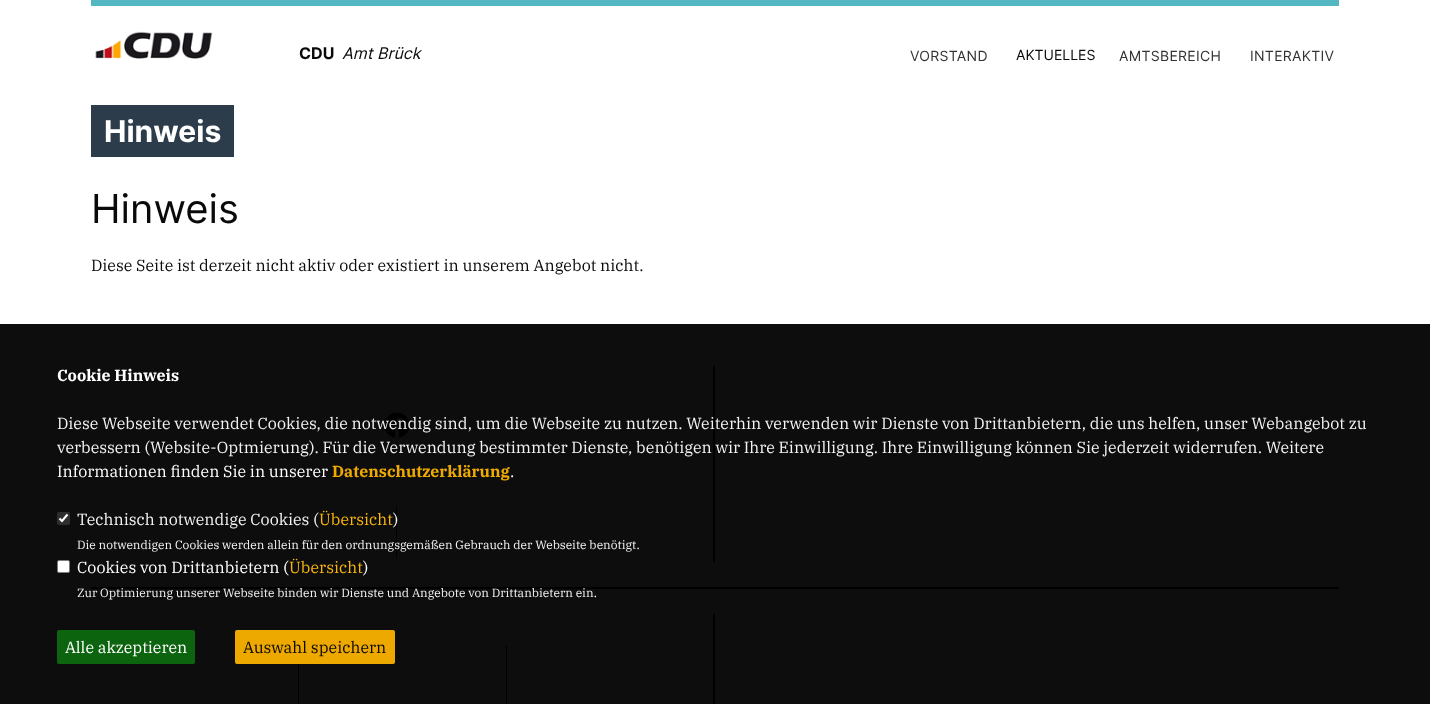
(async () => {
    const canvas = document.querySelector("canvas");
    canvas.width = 1430;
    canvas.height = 704;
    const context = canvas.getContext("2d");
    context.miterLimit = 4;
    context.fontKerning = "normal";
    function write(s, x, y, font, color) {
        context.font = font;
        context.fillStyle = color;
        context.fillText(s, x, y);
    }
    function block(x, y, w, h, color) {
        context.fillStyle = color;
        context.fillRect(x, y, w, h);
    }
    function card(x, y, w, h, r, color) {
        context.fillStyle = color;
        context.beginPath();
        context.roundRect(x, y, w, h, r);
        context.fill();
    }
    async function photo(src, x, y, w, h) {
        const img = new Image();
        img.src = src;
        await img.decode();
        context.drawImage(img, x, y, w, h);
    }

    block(0, 0, 1430, 704, "rgb(255, 255, 255)");
    block(0, 324, 1430, 380, "rgb(13, 13, 13)");
    block(91, 0, 1248, 6, "rgb(82, 183, 193)");
    await photo("media/1.png", 95, 31, 118, 28);
    write("CDU", 299, 59, "bold 16px Inter", "rgb(11, 10, 10)");
    write("Amt Brück", 342, 59, "italic 16px Inter", "rgb(11, 10, 10)");
    context.letterSpacing = "0.3px";
    write("VORSTAND", 910, 61, "14px Inter", "rgb(51, 51, 51)");
    context.letterSpacing = "0px";
    write("AKTUELLES", 1016, 60, "14px Inter", "rgb(11, 10, 10)");
    context.letterSpacing = "0.3px";
    write("AMTSBEREICH", 1119, 61, "14px Inter", "rgb(51, 51, 51)");
    write("INTERAKTIV", 1250, 61, "14px Inter", "rgb(51, 51, 51)");
    block(91, 105, 143, 52, "rgb(45, 60, 75)");
    context.letterSpacing = "0px";
    write("Hinweis", 104, 142, "bold 30px Inter", "rgb(255, 255, 255)");
    write("Hinweis", 91, 223, "40px Inter", "rgb(11, 10, 10)");
    write("Diese Seite ist derzeit nicht aktiv oder existiert in unserem Angebot nicht.", 91, 271, "16px IBM Plex Serif", "rgb(11, 10, 10)");
    await photo("media/2.png", 384, 412, 26, 26);
    block(396, 507, 1, 50, "rgb(0, 0, 0)");
    block(713, 366, 2, 196, "rgb(0, 0, 0)");
    block(91, 587, 1248, 2, "rgb(0, 0, 0)");
    block(298, 646, 1, 58, "rgb(0, 0, 0)");
    block(506, 646, 1, 58, "rgb(0, 0, 0)");
    block(713, 614, 2, 90, "rgb(0, 0, 0)");
    write("Cookie Hinweis", 57, 381, "bold 16px IBM Plex Serif", "rgb(255, 255, 255)");
    write("Diese Webseite verwendet Cookies, die notwendig sind, um die Webseite zu nutzen. Weiterhin verwenden wir Dienste von Drittanbietern, die uns helfen, unser Webangebot zu", 57, 429, "16px IBM Plex Serif", "rgb(243, 243, 243)");
    write("verbessern (Website-Optmierung). Für die Verwendung bestimmter Dienste, benötigen wir Ihre Einwilligung. Ihre Einwilligung können Sie jederzeit widerrufen. Weitere", 57, 453, "16px IBM Plex Serif", "rgb(243, 243, 243)");
    write("Informationen finden Sie in unserer", 57, 477, "16px IBM Plex Serif", "rgb(255, 255, 255)");
    write("Datenschutzerklärung", 332, 477, "bold 16px IBM Plex Serif", "rgb(238, 170, 1)");
    write(".", 510, 477, "16px IBM Plex Serif", "rgb(255, 255, 255)");
    card(57, 512, 13, 13, 2, "rgb(46, 46, 46)");
    context.beginPath();
    context.moveTo(59.5, 518.5);
    context.lineTo(62, 521);
    context.lineTo(67.5, 514.5);
    context.strokeStyle = "rgb(255, 255, 255)";
    context.lineWidth = 2.1;
    context.stroke();
    write("Technisch notwendige Cookies (", 77, 525, "16px IBM Plex Serif", "rgb(243, 243, 243)");
    write("Übersicht", 319, 525, "16px IBM Plex Serif", "rgb(250, 182, 13)");
    write(")", 393, 525, "16px IBM Plex Serif", "rgb(243, 243, 243)");
    write("Die notwendigen Cookies werden allein für den ordnungsgemäßen Gebrauch der Webseite benötigt.", 77, 549, "12px IBM Plex Serif", "rgb(243, 243, 243)");
    context.fillStyle = "rgb(255, 255, 255)";
    context.beginPath();
    context.roundRect(57.5, 560.5, 12, 12, 1.5);
    context.fill();
    context.strokeStyle = "rgb(125, 125, 125)";
    context.lineWidth = 1;
    context.stroke();
    write("Cookies von Drittanbietern (", 77, 573, "16px IBM Plex Serif", "rgb(255, 255, 255)");
    write("Übersicht", 289, 573, "16px IBM Plex Serif", "rgb(250, 182, 13)");
    write(")", 363, 573, "16px IBM Plex Serif", "rgb(255, 255, 255)");
    write("Zur Optimierung unserer Webseite binden wir Dienste und Angebote von Drittanbietern ein.", 77, 597, "12px IBM Plex Serif", "rgb(243, 243, 243)");
    card(57, 630, 138, 34, 2, "rgb(13, 100, 15)");
    write("Alle akzeptieren", 65, 653, "16px IBM Plex Serif", "rgb(255, 255, 255)");
    card(235, 630, 160, 34, 2, "rgba(250, 178, 0, 0.95)");
    write("Auswahl speichern", 243, 653, "16px IBM Plex Serif", "rgb(12, 8, 0)");
})();
